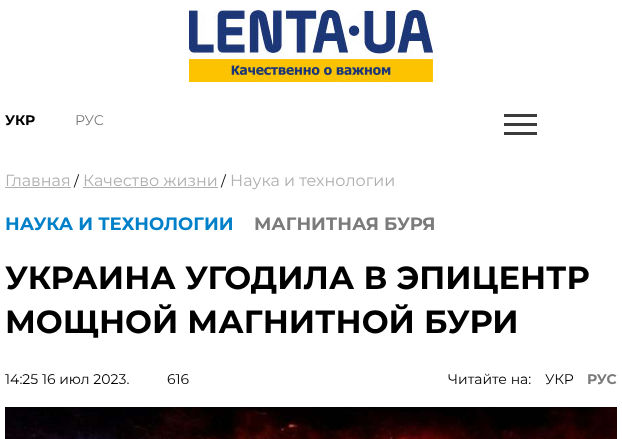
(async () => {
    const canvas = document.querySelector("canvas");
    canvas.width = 622;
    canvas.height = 439;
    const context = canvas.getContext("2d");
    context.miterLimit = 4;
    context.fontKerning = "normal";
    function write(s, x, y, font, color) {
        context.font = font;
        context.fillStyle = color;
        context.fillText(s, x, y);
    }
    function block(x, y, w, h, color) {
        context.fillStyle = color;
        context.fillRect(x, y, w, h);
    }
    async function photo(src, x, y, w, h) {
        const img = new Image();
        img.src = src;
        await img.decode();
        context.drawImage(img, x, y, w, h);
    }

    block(0, 0, 622, 439, "rgb(255, 255, 255)");
    await photo("media/1.png", 189, 10, 244, 72);
    write("УКР", 5, 125, "bold 14px Montserrat", "rgb(0, 0, 0)");
    write("РУС", 75, 125, "14px Montserrat", "rgb(122, 123, 122)");
    await photo("media/2.png", 504, 114, 33, 21);
    write("Главная", 5, 186, "16px Montserrat", "rgb(175, 175, 175)");
    block(5, 187, 66, 1, "rgb(175, 175, 175)");
    write("/", 74, 186, "14px Montserrat", "rgb(0, 0, 0)");
    write("Качество жизни", 83, 186, "16px Montserrat", "rgb(175, 175, 175)");
    block(83, 187, 135, 1, "rgb(175, 175, 175)");
    write("/", 221, 186, "14px Montserrat", "rgb(0, 0, 0)");
    write("Наука и технологии", 230, 186, "16px Montserrat", "rgb(175, 175, 175)");
    write("НАУКА И ТЕХНОЛОГИИ", 5, 230, "bold 18px Montserrat", "rgb(0, 128, 200)");
    write("МАГНИТНАЯ БУРЯ", 254, 230, "bold 18px Montserrat", "rgb(122, 123, 122)");
    write("УКРАИНА УГОДИЛА В ЭПИЦЕНТР", 5, 289, "bold 32px Montserrat", "rgb(0, 0, 0)");
    write("МОЩНОЙ МАГНИТНОЙ БУРИ", 5, 333, "bold 32px Montserrat", "rgb(0, 0, 0)");
    write("14:25 16 июл 2023.", 5, 384, "14px Montserrat", "rgb(0, 0, 0)");
    write("616", 167, 384, "14px Montserrat", "rgb(0, 0, 0)");
    write("Читайте на:", 448, 384, "14px Montserrat", "rgb(0, 0, 0)");
    write("УКР", 545, 384, "14px Montserrat", "rgb(0, 0, 0)");
    write("РУС", 587, 384, "bold 14px Montserrat", "rgb(122, 123, 122)");
    await photo("media/3.png", 5, 407, 612, 32);
})();
